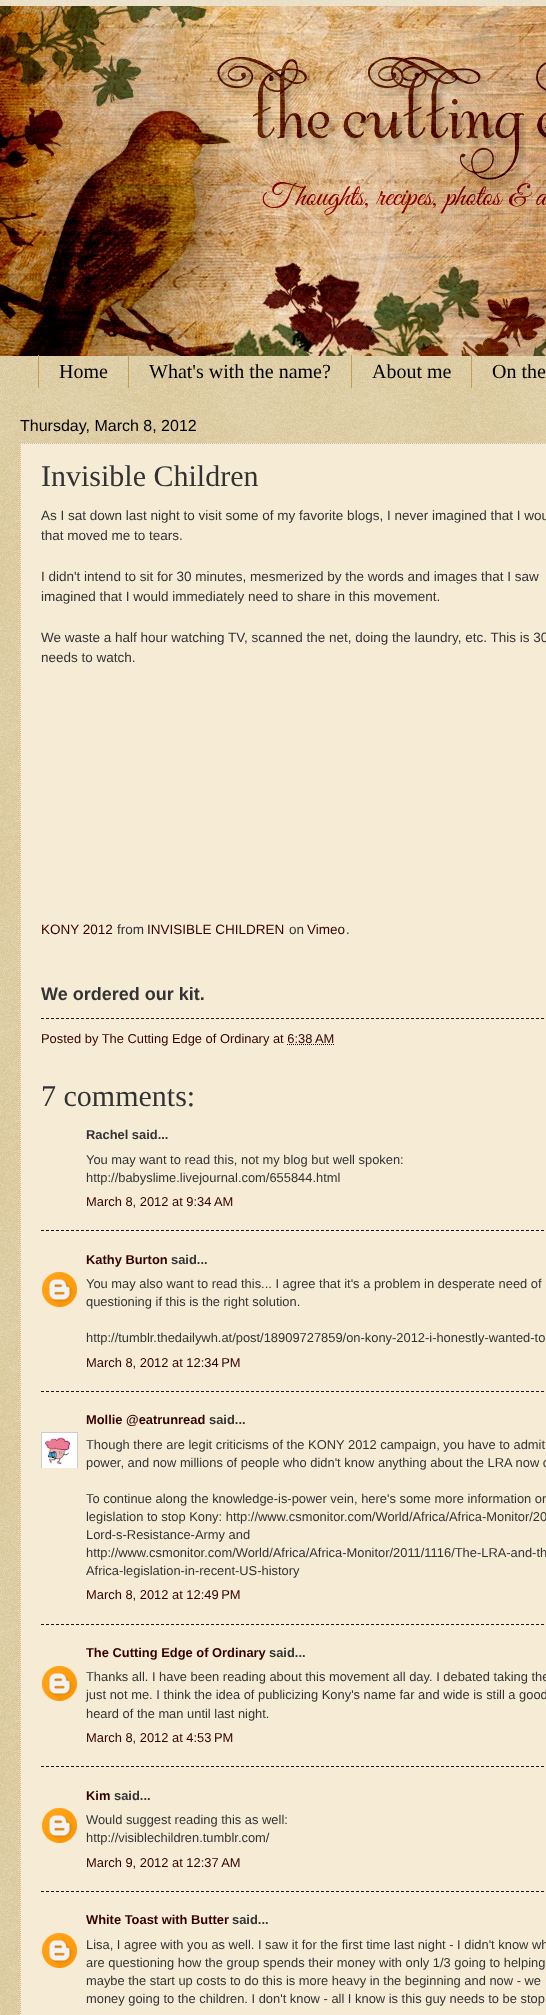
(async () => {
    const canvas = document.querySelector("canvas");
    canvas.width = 546;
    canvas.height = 2015;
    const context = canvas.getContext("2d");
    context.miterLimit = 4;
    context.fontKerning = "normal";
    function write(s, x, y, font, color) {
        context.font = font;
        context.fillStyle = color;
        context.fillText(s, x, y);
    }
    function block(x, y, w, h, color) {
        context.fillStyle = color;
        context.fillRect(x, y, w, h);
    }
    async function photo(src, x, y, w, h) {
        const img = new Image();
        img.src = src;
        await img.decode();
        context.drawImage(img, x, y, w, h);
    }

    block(0, 0, 546, 2015, "rgb(192, 161, 84)");
    await photo("media/1.png", 0, 0, 546, 2015);
    block(0, 0, 546, 6, "rgba(255, 255, 255, 0.4)");
    await photo("media/2.png", 0, 6, 546, 350);
    block(128, 355, 1, 33, "rgb(192, 161, 84)");
    block(38, 355, 1, 33, "rgb(192, 161, 84)");
    write("Home", 59, 378, "20px Liberation Serif", "rgb(0, 0, 0)");
    block(351, 355, 1, 33, "rgb(192, 161, 84)");
    write("What's with the name?", 149, 378, "20px Liberation Serif", "rgb(0, 0, 0)");
    block(471, 355, 1, 33, "rgb(192, 161, 84)");
    write("About me", 372, 378, "20px Liberation Serif", "rgb(0, 0, 0)");
    write("On the", 492, 378, "20px Liberation Serif", "rgb(0, 0, 0)");
    write("Thursday, March 8, 2012", 20, 431, "16px Liberation Sans", "rgb(0, 0, 0)");
    block(20, 443, 526, 1572, "rgb(246, 236, 214)");
    context.beginPath();
    context.moveTo(20, 443.5);
    context.lineTo(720, 443.5);
    context.strokeStyle = "rgb(204, 187, 153)";
    context.setLineDash([1, 1]);
    context.stroke();
    context.beginPath();
    context.moveTo(20.5, 443);
    context.lineTo(20.5, 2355);
    context.stroke();
    write("Invisible Children", 41, 486, "30px Liberation Serif", "rgb(51, 51, 51)");
    write("As I sat down last night to visit some of my favorite blogs, I never imagined that I wou", 41, 520, "13.5px Liberation Sans", "rgb(51, 51, 51)");
    write("that moved me to tears.", 41, 540, "13.5px Liberation Sans", "rgb(51, 51, 51)");
    write("I didn't intend to sit for 30 minutes, mesmerized by the words and images that I saw", 41, 581, "13.5px Liberation Sans", "rgb(51, 51, 51)");
    write("imagined that I would immediately need to share in this movement.", 41, 601, "13.5px Liberation Sans", "rgb(51, 51, 51)");
    write("We waste a half hour watching TV, scanned the net, doing the laundry, etc. This is 30", 41, 642, "13.5px Liberation Sans", "rgb(51, 51, 51)");
    write("needs to watch.", 41, 662, "13.5px Liberation Sans", "rgb(51, 51, 51)");
    write("KONY 2012", 41, 934, "13.5px Liberation Sans", "rgb(51, 0, 0)");
    write("from", 117, 934, "13.5px Liberation Sans", "rgb(51, 51, 51)");
    write("INVISIBLE CHILDREN", 147, 934, "13.5px Liberation Sans", "rgb(51, 0, 0)");
    write("on", 289, 934, "13.5px Liberation Sans", "rgb(51, 51, 51)");
    write("Vimeo", 307, 934, "13.5px Liberation Sans", "rgb(51, 0, 0)");
    write(".", 346, 934, "13.5px Liberation Sans", "rgb(51, 51, 51)");
    write("We ordered our kit.", 41, 1000, "bold 18px Liberation Sans", "rgb(51, 51, 51)");
    context.beginPath();
    context.moveTo(41, 1018.5);
    context.lineTo(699, 1018.5);
    context.strokeStyle = "rgb(25, 25, 25)";
    context.setLineDash([3, 2]);
    context.stroke();
    write("Posted by The Cutting Edge of Ordinary at 6:38 AM", 41, 1043, "12.9px Liberation Sans", "rgb(51, 0, 0)");
    context.beginPath();
    context.moveTo(287, 1044.5);
    context.lineTo(334, 1044.5);
    context.strokeStyle = "rgb(51, 0, 0)";
    context.setLineDash([1, 1]);
    context.stroke();
    write("7 comments:", 41, 1106, "30px Liberation Serif", "rgb(51, 51, 51)");
    write("Rachel said...", 86, 1139, "bold 12.9px Liberation Sans", "rgb(51, 51, 51)");
    write("You may want to read this, not my blog but well spoken:", 86, 1164, "12.9px Liberation Sans", "rgb(51, 51, 51)");
    write("http://babyslime.livejournal.com/655844.html", 86, 1182, "12.9px Liberation Sans", "rgb(51, 51, 51)");
    write("March 8, 2012 at 9:34 AM", 86, 1206, "12.9px Liberation Sans", "rgb(51, 0, 0)");
    context.beginPath();
    context.moveTo(41, 1230.5);
    context.lineTo(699, 1230.5);
    context.strokeStyle = "rgb(25, 25, 25)";
    context.setLineDash([3, 2]);
    context.stroke();
    write("Kathy Burton", 86, 1264, "bold 12.9px Liberation Sans", "rgb(51, 0, 0)");
    write("said...", 171, 1264, "bold 12.9px Liberation Sans", "rgb(51, 51, 51)");
    await photo("media/3.png", 42, 1272, 35, 35);
    write("You may also want to read this... I agree that it's a problem in desperate need of", 86, 1288, "12.9px Liberation Sans", "rgb(51, 51, 51)");
    write("questioning if this is the right solution.", 86, 1306, "12.9px Liberation Sans", "rgb(51, 51, 51)");
    write("http://tumblr.thedailywh.at/post/18909727859/on-kony-2012-i-honestly-wanted-to", 86, 1342, "12.9px Liberation Sans", "rgb(51, 51, 51)");
    write("March 8, 2012 at 12:34 PM", 86, 1367, "12.9px Liberation Sans", "rgb(51, 0, 0)");
    context.beginPath();
    context.moveTo(41, 1391.5);
    context.lineTo(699, 1391.5);
    context.stroke();
    write("Mollie @eatrunread", 86, 1424, "bold 12.9px Liberation Sans", "rgb(51, 0, 0)");
    write("said...", 209, 1424, "bold 12.9px Liberation Sans", "rgb(51, 51, 51)");
    context.save();
    context.beginPath();
    context.rect(41, 1432, 37, 36);
    context.clip();
    context.strokeStyle = "rgb(204, 204, 204)";
    context.setLineDash([]);
    context.strokeRect(41.5, 1432.5, 36, 36);
    context.restore();
    await photo("media/4.png", 42, 1433, 35, 35);
    write("Though there are legit criticisms of the KONY 2012 campaign, you have to admit", 86, 1449, "12.9px Liberation Sans", "rgb(51, 51, 51)");
    write("power, and now millions of people who didn't know anything about the LRA now c", 86, 1467, "12.9px Liberation Sans", "rgb(51, 51, 51)");
    write("To continue along the knowledge-is-power vein, here's some more information on", 86, 1503, "12.9px Liberation Sans", "rgb(51, 51, 51)");
    write("legislation to stop Kony: http://www.csmonitor.com/World/Africa/Africa-Monitor/20", 86, 1521, "12.9px Liberation Sans", "rgb(51, 51, 51)");
    write("Lord-s-Resistance-Army and", 86, 1539, "12.9px Liberation Sans", "rgb(51, 51, 51)");
    write("http://www.csmonitor.com/World/Africa/Africa-Monitor/2011/1116/The-LRA-and-th", 86, 1557, "12.9px Liberation Sans", "rgb(51, 51, 51)");
    write("Africa-legislation-in-recent-US-history", 86, 1575, "12.9px Liberation Sans", "rgb(51, 51, 51)");
    write("March 8, 2012 at 12:49 PM", 86, 1599, "12.9px Liberation Sans", "rgb(51, 0, 0)");
    context.beginPath();
    context.moveTo(41, 1624.5);
    context.lineTo(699, 1624.5);
    context.stroke();
    write("The Cutting Edge of Ordinary", 86, 1657, "bold 12.9px Liberation Sans", "rgb(51, 0, 0)");
    write("said...", 269, 1657, "bold 12.9px Liberation Sans", "rgb(51, 51, 51)");
    await photo("media/3.png", 42, 1666, 35, 35);
    write("Thanks all. I have been reading about this movement all day. I debated taking the", 86, 1681, "12.9px Liberation Sans", "rgb(51, 51, 51)");
    write("just not me. I think the idea of publicizing Kony's name far and wide is still a good", 86, 1699, "12.9px Liberation Sans", "rgb(51, 51, 51)");
    write("heard of the man until last night.", 86, 1718, "12.9px Liberation Sans", "rgb(51, 51, 51)");
    write("March 8, 2012 at 4:53 PM", 86, 1742, "12.9px Liberation Sans", "rgb(51, 0, 0)");
    context.beginPath();
    context.moveTo(41, 1766.5);
    context.lineTo(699, 1766.5);
    context.stroke();
    write("Kim", 86, 1800, "bold 12.9px Liberation Sans", "rgb(51, 0, 0)");
    write("said...", 114, 1800, "bold 12.9px Liberation Sans", "rgb(51, 51, 51)");
    await photo("media/3.png", 42, 1808, 35, 35);
    write("Would suggest reading this as well:", 86, 1824, "12.9px Liberation Sans", "rgb(51, 51, 51)");
    write("http://visiblechildren.tumblr.com/", 86, 1842, "12.9px Liberation Sans", "rgb(51, 51, 51)");
    write("March 9, 2012 at 12:37 AM", 86, 1867, "12.9px Liberation Sans", "rgb(51, 0, 0)");
    context.beginPath();
    context.moveTo(41, 1891.5);
    context.lineTo(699, 1891.5);
    context.stroke();
    write("White Toast with Butter", 86, 1924, "bold 12.9px Liberation Sans", "rgb(51, 0, 0)");
    write("said...", 232, 1924, "bold 12.9px Liberation Sans", "rgb(51, 51, 51)");
    await photo("media/3.png", 42, 1933, 35, 35);
    write("Lisa, I agree with you as well. I saw it for the first time last night - I didn't know wh", 86, 1949, "12.9px Liberation Sans", "rgb(51, 51, 51)");
    write("are questioning how the group spends their money with only 1/3 going to helping", 86, 1967, "12.9px Liberation Sans", "rgb(51, 51, 51)");
    write("maybe the start up costs to do this is more heavy in the beginning and now - we", 86, 1985, "12.9px Liberation Sans", "rgb(51, 51, 51)");
    write("money going to the children. I don't know - all I know is this guy needs to be stop", 86, 2003, "12.9px Liberation Sans", "rgb(51, 51, 51)");
})();
